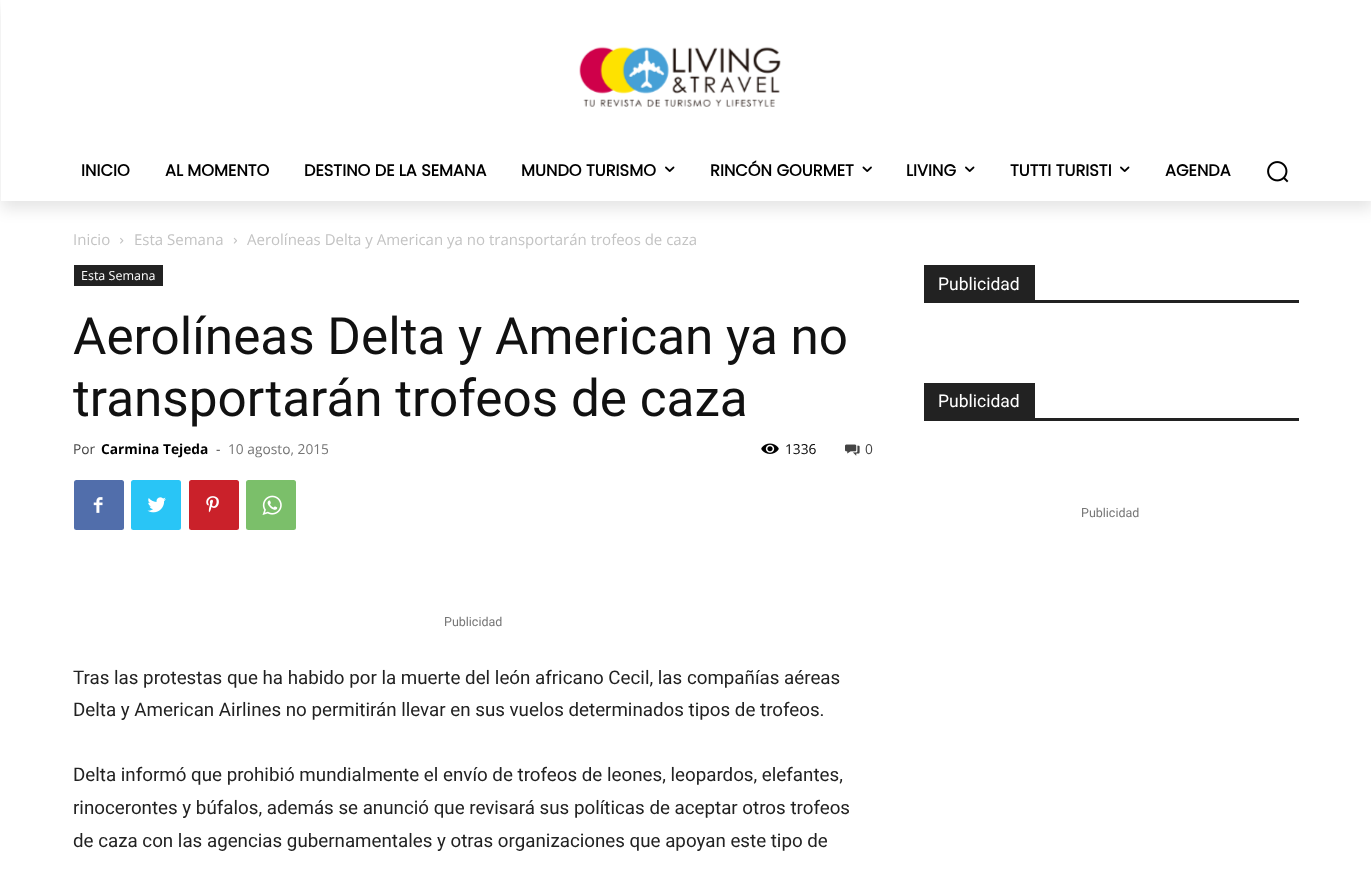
(async () => {
    const canvas = document.querySelector("canvas");
    canvas.width = 1371;
    canvas.height = 869;
    const context = canvas.getContext("2d");
    context.miterLimit = 4;
    context.fontKerning = "normal";
    function write(s, x, y, font, color) {
        context.font = font;
        context.fillStyle = color;
        context.fillText(s, x, y);
    }
    function block(x, y, w, h, color) {
        context.fillStyle = color;
        context.fillRect(x, y, w, h);
    }
    function card(x, y, w, h, r, color) {
        context.fillStyle = color;
        context.beginPath();
        context.roundRect(x, y, w, h, r);
        context.fill();
    }
    async function photo(src, x, y, w, h) {
        const img = new Image();
        img.src = src;
        await img.decode();
        context.drawImage(img, x, y, w, h);
    }

    block(0, 0, 1371, 869, "rgb(255, 255, 255)");
    await photo("media/1.png", 579, 46, 202, 61);
    context.save();
    context.beginPath();
    context.moveTo(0, 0);
    context.lineTo(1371, 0);
    context.lineTo(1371, 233);
    context.lineTo(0, 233);
    context.closePath();
    context.moveTo(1, 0);
    context.lineTo(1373, 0);
    context.lineTo(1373, 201);
    context.lineTo(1, 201);
    context.closePath();
    context.clip("evenodd");
    context.fillStyle = "rgba(0, 0, 0, 0.1)";
    context.filter = "blur(7.5px)";
    context.beginPath();
    context.rect(1, 8, 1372, 201);
    context.fill();
    context.filter = "none";
    context.restore();
    write("INICIO", 81, 176, "bold 16.25px Poppins", "rgb(0, 0, 0)");
    write("AL MOMENTO", 165, 176, "bold 16.25px Poppins", "rgb(0, 0, 0)");
    write("DESTINO DE LA SEMANA", 304, 176, "bold 16.25px Poppins", "rgb(0, 0, 0)");
    write("MUNDO TURISMO", 521, 176, "bold 16.25px Poppins", "rgb(0, 0, 0)");
    await photo("media/2.png", 665, 166, 10, 6);
    write("RINCÓN GOURMET", 710, 176, "bold 16.25px Poppins", "rgb(0, 0, 0)");
    await photo("media/3.png", 862, 166, 10, 6);
    write("LIVING", 906, 176, "bold 16.25px Poppins", "rgb(0, 0, 0)");
    await photo("media/2.png", 965, 166, 10, 6);
    write("TUTTI TURISTI", 1010, 176, "bold 16.25px Poppins", "rgb(0, 0, 0)");
    await photo("media/2.png", 1120, 166, 10, 6);
    write("AGENDA", 1165, 176, "bold 16.25px Poppins", "rgb(0, 0, 0)");
    await photo("media/4.png", 1267, 161, 22, 22);
    write("Inicio", 73, 245, "15px Open Sans", "rgb(195, 195, 195)");
    await photo("media/5.png", 120, 237, 4, 7);
    write("Esta Semana", 134, 245, "15px Open Sans", "rgb(195, 195, 195)");
    await photo("media/6.png", 233, 237, 4, 7);
    write("Aerolíneas Delta y American ya no transportarán trofeos de caza", 247, 245, "15px Open Sans", "rgb(195, 195, 195)");
    block(74, 265, 89, 21, "rgb(34, 34, 34)");
    write("Esta Semana", 81, 280, "12.5px Open Sans", "rgb(255, 255, 255)");
    write("Aerolíneas Delta y American ya no", 73, 354, "51.25px Roboto", "rgb(17, 17, 17)");
    write("transportarán trofeos de caza", 73, 416, "51.25px Roboto", "rgb(17, 17, 17)");
    write("Por", 73, 454, "13.75px Open Sans", "rgb(68, 68, 68)");
    write("Carmina Tejeda", 101, 454, "bold 13.75px Open Sans", "rgb(0, 0, 0)");
    write("-", 216, 454, "13.75px Open Sans", "rgb(68, 68, 68)");
    write("10 agosto, 2015", 228, 454, "13.75px Open Sans", "rgb(118, 118, 118)");
    await photo("media/7.png", 761, 443, 18, 11);
    write("1336", 785, 454, "13.75px Open Sans", "rgb(0, 0, 0)");
    await photo("media/8.png", 845, 444, 15, 12);
    write("0", 865, 454, "13.75px Open Sans", "rgb(68, 68, 68)");
    card(74, 480, 50, 50, 2.5, "rgb(81, 110, 171)");
    await photo("media/9.png", 93, 497, 10, 16);
    card(131, 480, 50, 50, 2.5, "rgb(41, 197, 246)");
    await photo("media/10.png", 147, 497, 19, 16);
    card(189, 480, 50, 50, 2.5, "rgb(202, 33, 42)");
    await photo("media/11.png", 206, 496, 13, 17);
    card(246, 480, 50, 50, 2.5, "rgb(123, 191, 106)");
    await photo("media/12.png", 262, 495, 20, 20);
    write("Publicidad", 444, 626, "12.5px Roboto", "rgb(118, 118, 118)");
    write("Tras las protestas que ha habido por la muerte del león africano Cecil, las compañías aéreas", 73, 684, "18.75px Roboto", "rgb(34, 34, 34)");
    write("Delta y American Airlines no permitirán llevar en sus vuelos determinados tipos de trofeos.", 73, 716, "18.75px Roboto", "rgb(34, 34, 34)");
    write("Delta informó que prohibió mundialmente el envío de trofeos de leones, leopardos, elefantes,", 73, 781, "18.75px Roboto", "rgb(34, 34, 34)");
    write("rinocerontes y búfalos, además se anunció que revisará sus políticas de aceptar otros trofeos", 73, 814, "18.75px Roboto", "rgb(34, 34, 34)");
    write("de caza con las agencias gubernamentales y otras organizaciones que apoyan este tipo de", 73, 847, "18.75px Roboto", "rgb(34, 34, 34)");
    block(924, 300, 375, 3, "rgb(34, 34, 34)");
    block(924, 265, 111, 35, "rgb(34, 34, 34)");
    write("Publicidad", 938, 290, "17.5px Roboto", "rgb(255, 255, 255)");
    block(924, 418, 375, 3, "rgb(34, 34, 34)");
    block(924, 383, 111, 35, "rgb(34, 34, 34)");
    write("Publicidad", 938, 407, "17.5px Roboto", "rgb(255, 255, 255)");
    write("Publicidad", 1081, 517, "12.5px Roboto", "rgb(118, 118, 118)");
})();
